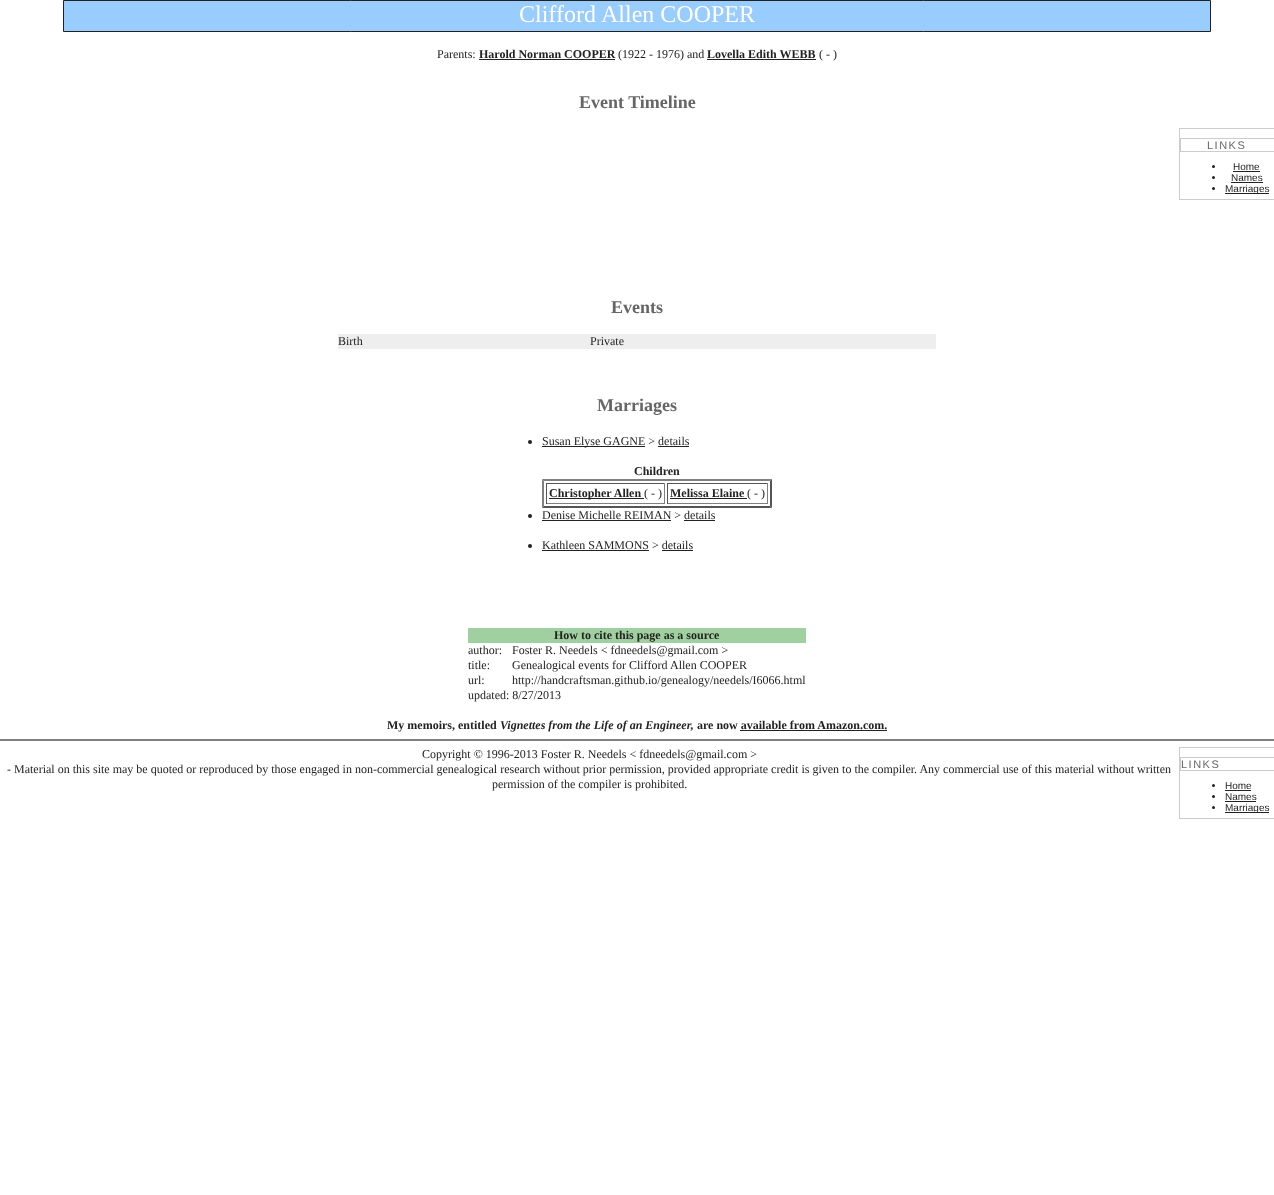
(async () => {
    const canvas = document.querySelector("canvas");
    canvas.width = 1274;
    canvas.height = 1195;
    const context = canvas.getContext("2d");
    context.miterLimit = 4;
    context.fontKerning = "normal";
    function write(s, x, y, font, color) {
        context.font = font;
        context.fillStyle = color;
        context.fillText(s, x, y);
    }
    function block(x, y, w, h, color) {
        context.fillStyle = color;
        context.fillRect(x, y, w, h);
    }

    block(0, 0, 1274, 1195, "rgb(255, 255, 255)");
    context.fillStyle = "rgb(153, 204, 255)";
    context.beginPath();
    context.rect(63.5, 0.5, 1147, 31);
    context.fill();
    context.strokeStyle = "rgb(34, 34, 34)";
    context.stroke();
    write("Clifford", 519, 22, "24px Liberation Serif", "rgb(255, 255, 255)");
    write("Allen COOPER", 601, 22, "24px Liberation Serif", "rgb(255, 255, 255)");
    write("Parents:", 437, 58, "12px Liberation Serif", "rgb(34, 34, 34)");
    write("Harold Norman COOPER", 479, 58, "bold 12px Liberation Serif", "rgb(34, 34, 34)");
    block(479, 59, 136, 1, "rgb(34, 34, 34)");
    write("(1922 - 1976) and", 618, 58, "12px Liberation Serif", "rgb(34, 34, 34)");
    write("Lovella Edith WEBB", 707, 58, "bold 12px Liberation Serif", "rgb(34, 34, 34)");
    block(707, 59, 109, 1, "rgb(34, 34, 34)");
    write("( - )", 819, 58, "12px Liberation Serif", "rgb(34, 34, 34)");
    write("Event Timeline", 579, 108, "bold 18px Liberation Serif", "rgb(102, 102, 102)");
    block(1179, 128, 95, 1, "rgb(204, 204, 204)");
    block(1179, 199, 95, 1, "rgb(204, 204, 204)");
    block(1179, 128, 1, 72, "rgb(204, 204, 204)");
    block(1180, 138, 94, 1, "rgb(204, 204, 204)");
    block(1180, 151, 94, 1, "rgb(204, 204, 204)");
    block(1180, 138, 1, 14, "rgb(204, 204, 204)");
    context.letterSpacing = "1.5px";
    write("LINKS", 1207, 149, "11px Liberation Sans", "rgb(102, 102, 102)");
    context.fillStyle = "rgb(34, 34, 34)";
    context.beginPath();
    context.arc(1213.5, 166.5, 1.5, 0, Math.PI * 2);
    context.fill();
    context.letterSpacing = "0px";
    write("Home", 1233, 170, "10px Liberation Sans", "rgb(34, 34, 34)");
    block(1233, 171, 27, 1, "rgb(34, 34, 34)");
    context.beginPath();
    context.arc(1213.5, 177.5, 1.5, 0, Math.PI * 2);
    context.fill();
    write("Names", 1231, 181, "10px Liberation Sans", "rgb(34, 34, 34)");
    block(1231, 182, 32, 1, "rgb(34, 34, 34)");
    context.beginPath();
    context.arc(1213.5, 188.5, 1.5, 0, Math.PI * 2);
    context.fill();
    block(1225, 193, 44, 1, "rgb(34, 34, 34)");
    write("Marriages", 1225, 192, "10px Liberation Sans", "rgb(34, 34, 34)");
    write("Events", 611, 313, "bold 18px Liberation Serif", "rgb(102, 102, 102)");
    block(338, 334, 598, 15, "rgb(238, 238, 238)");
    write("Birth", 338, 345, "12px Liberation Serif", "rgb(34, 34, 34)");
    write("Private", 590, 345, "12px Liberation Serif", "rgb(34, 34, 34)");
    write("Marriages", 597, 411, "bold 18px Liberation Serif", "rgb(102, 102, 102)");
    context.fillStyle = "rgb(34, 34, 34)";
    context.beginPath();
    context.arc(530, 442, 2, 0, Math.PI * 2);
    context.fill();
    block(542, 446, 103, 1, "rgb(34, 34, 34)");
    write("Susan Elyse GAGNE > details", 542, 445, "12px Liberation Serif", "rgb(34, 34, 34)");
    block(658, 446, 31, 1, "rgb(34, 34, 34)");
    write("Children", 634, 475, "bold 12px Liberation Serif", "rgb(34, 34, 34)");
    context.fillStyle = "rgb(128, 128, 128)";
    context.beginPath();
    context.moveTo(542, 479);
    context.lineTo(772, 479);
    context.lineTo(770, 481);
    context.lineTo(544, 481);
    context.closePath();
    context.fill();
    context.fillStyle = "rgb(85, 85, 85)";
    context.beginPath();
    context.moveTo(772, 479);
    context.lineTo(772, 508);
    context.lineTo(770, 506);
    context.lineTo(770, 481);
    context.closePath();
    context.fill();
    context.beginPath();
    context.moveTo(772, 508);
    context.lineTo(542, 508);
    context.lineTo(544, 506);
    context.lineTo(770, 506);
    context.closePath();
    context.fill();
    context.fillStyle = "rgb(128, 128, 128)";
    context.beginPath();
    context.moveTo(542, 508);
    context.lineTo(542, 479);
    context.lineTo(544, 481);
    context.lineTo(544, 506);
    context.closePath();
    context.fill();
    block(546, 483, 119, 1, "rgb(85, 85, 85)");
    block(664, 483, 1, 21, "rgb(128, 128, 128)");
    block(546, 503, 119, 1, "rgb(128, 128, 128)");
    block(546, 483, 1, 21, "rgb(85, 85, 85)");
    block(549, 498, 95, 1, "rgb(34, 34, 34)");
    write("Christopher Allen", 549, 497, "bold 12px Liberation Serif", "rgb(34, 34, 34)");
    write("( - )", 644, 497, "12px Liberation Serif", "rgb(34, 34, 34)");
    block(667, 483, 101, 1, "rgb(85, 85, 85)");
    block(767, 483, 1, 21, "rgb(128, 128, 128)");
    block(667, 503, 101, 1, "rgb(128, 128, 128)");
    block(667, 483, 1, 21, "rgb(85, 85, 85)");
    write("Melissa Elaine", 670, 497, "bold 12px Liberation Serif", "rgb(34, 34, 34)");
    block(670, 498, 77, 1, "rgb(34, 34, 34)");
    write("( - )", 747, 497, "12px Liberation Serif", "rgb(34, 34, 34)");
    context.beginPath();
    context.arc(530, 516, 2, 0, Math.PI * 2);
    context.fill();
    write("Denise Michelle REIMAN > details", 542, 519, "12px Liberation Serif", "rgb(34, 34, 34)");
    block(542, 520, 129, 1, "rgb(34, 34, 34)");
    block(684, 520, 31, 1, "rgb(34, 34, 34)");
    context.beginPath();
    context.arc(530, 546, 2, 0, Math.PI * 2);
    context.fill();
    write("Kathleen SAMMONS > details", 542, 549, "12px Liberation Serif", "rgb(34, 34, 34)");
    block(542, 550, 107, 1, "rgb(34, 34, 34)");
    block(662, 550, 31, 1, "rgb(34, 34, 34)");
    block(468, 628, 338, 15, "rgb(160, 208, 160)");
    write("How to cite this page as a source", 554, 639, "bold 12px Liberation Serif", "rgb(34, 34, 34)");
    write("author:", 468, 654, "12px Liberation Serif", "rgb(34, 34, 34)");
    write("Foster R. Needels < fdneedels@gmail.com >", 512, 654, "12px Liberation Serif", "rgb(34, 34, 34)");
    write("title:", 468, 669, "12px Liberation Serif", "rgb(34, 34, 34)");
    write("Genealogical events for Clifford", 512, 669, "12px Liberation Serif", "rgb(34, 34, 34)");
    write("Allen COOPER", 670, 669, "12px Liberation Serif", "rgb(34, 34, 34)");
    write("url:", 468, 684, "12px Liberation Serif", "rgb(34, 34, 34)");
    write("http://handcraftsman.github.io/genealogy/needels/I6066.html", 512, 684, "12px Liberation Serif", "rgb(34, 34, 34)");
    write("updated: 8/27/2013", 468, 699, "12px Liberation Serif", "rgb(34, 34, 34)");
    write("My memoirs, entitled", 387, 729, "bold 12px Liberation Serif", "rgb(34, 34, 34)");
    write("Vignettes from the Life of an Engineer,", 500, 729, "italic bold 12px Liberation Serif", "rgb(34, 34, 34)");
    write("are now available from Amazon.com.", 697, 729, "bold 12px Liberation Serif", "rgb(34, 34, 34)");
    block(740, 730, 147, 1, "rgb(34, 34, 34)");
    block(0, 739, 1274, 2, "rgb(128, 128, 128)");
    write("Copyright © 1996-2013 Foster R. Needels < fdneedels@gmail.com >", 422, 758, "12px Liberation Serif", "rgb(34, 34, 34)");
    write("- Material on this site may be quoted or reproduced by those engaged in non-commercial genealogical research without prior permission, provided appropriate credit is given to the compiler. Any commercial use of this material without written", 7, 773, "12px Liberation Serif", "rgb(34, 34, 34)");
    write("permission of the compiler is prohibited.", 492, 788, "12px Liberation Serif", "rgb(34, 34, 34)");
    block(1179, 747, 95, 1, "rgb(204, 204, 204)");
    block(1179, 818, 95, 1, "rgb(204, 204, 204)");
    block(1179, 747, 1, 72, "rgb(204, 204, 204)");
    block(1180, 757, 94, 1, "rgb(204, 204, 204)");
    block(1180, 770, 94, 1, "rgb(204, 204, 204)");
    block(1180, 757, 1, 14, "rgb(204, 204, 204)");
    context.letterSpacing = "1.5px";
    write("LINKS", 1181, 768, "11px Liberation Sans", "rgb(102, 102, 102)");
    context.fillStyle = "rgb(34, 34, 34)";
    context.beginPath();
    context.arc(1213.5, 785.5, 1.5, 0, Math.PI * 2);
    context.fill();
    context.letterSpacing = "0px";
    write("Home", 1225, 789, "10px Liberation Sans", "rgb(34, 34, 34)");
    block(1225, 790, 26, 1, "rgb(34, 34, 34)");
    context.beginPath();
    context.arc(1213.5, 796.5, 1.5, 0, Math.PI * 2);
    context.fill();
    write("Names", 1225, 800, "10px Liberation Sans", "rgb(34, 34, 34)");
    block(1225, 801, 31, 1, "rgb(34, 34, 34)");
    context.beginPath();
    context.arc(1213.5, 807.5, 1.5, 0, Math.PI * 2);
    context.fill();
    block(1225, 812, 44, 1, "rgb(34, 34, 34)");
    write("Marriages", 1225, 811, "10px Liberation Sans", "rgb(34, 34, 34)");
})();
